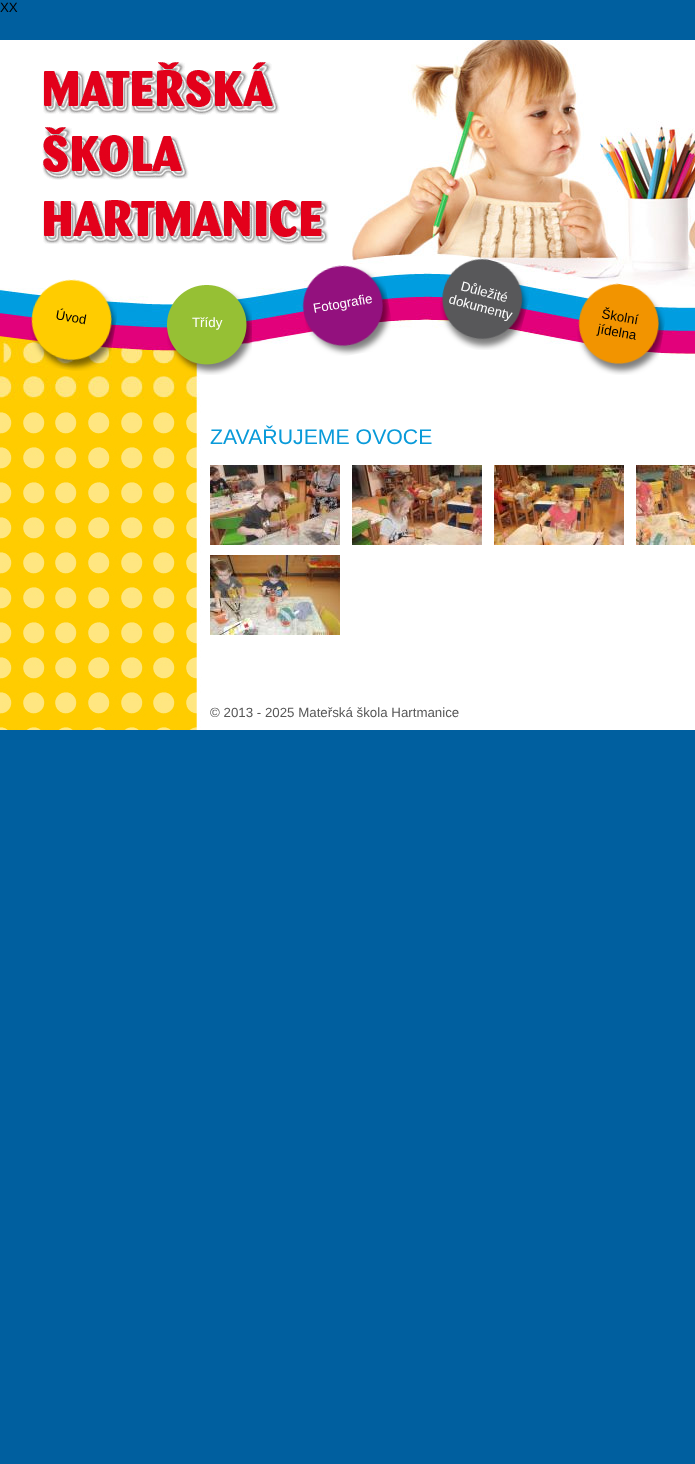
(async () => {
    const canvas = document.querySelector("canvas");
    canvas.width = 695;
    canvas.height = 1464;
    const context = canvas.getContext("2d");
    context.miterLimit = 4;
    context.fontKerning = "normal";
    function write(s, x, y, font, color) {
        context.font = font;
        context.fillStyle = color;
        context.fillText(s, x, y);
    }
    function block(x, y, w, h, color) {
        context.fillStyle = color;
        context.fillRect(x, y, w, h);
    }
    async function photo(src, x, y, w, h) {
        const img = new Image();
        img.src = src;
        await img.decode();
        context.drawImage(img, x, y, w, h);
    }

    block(0, 0, 695, 1464, "rgb(0, 95, 159)");
    write("XX", 0, 12, "13.3px Liberation Sans", "rgb(0, 0, 0)");
    await photo("media/1.png", 0, 40, 695, 365);
    await photo("media/2.png", 42, 62, 287, 183);
    await photo("media/3.png", 302, 265, 89, 91);
    context.fillStyle = "rgb(255, 255, 255)";
    context.save();
    context.translate(314, 313);
    context.rotate(-10 * Math.PI / 180);
    context.fillText("Fotografie", 0, 0);
    context.restore();
    await photo("media/4.png", 440, 258, 89, 92);
    context.save();
    context.translate(460, 290);
    context.rotate(15 * Math.PI / 180);
    context.fillText("Důležité", 0, 0);
    context.restore();
    context.save();
    context.translate(448, 303);
    context.rotate(15 * Math.PI / 180);
    context.fillText("dokumenty", 0, 0);
    context.restore();
    await photo("media/5.png", 30, 279, 87, 92);
    context.fillStyle = "rgb(0, 0, 0)";
    context.save();
    context.translate(55, 319);
    context.rotate(10 * Math.PI / 180);
    context.fillText("Úvod", 0, 0);
    context.restore();
    await photo("media/6.png", 167, 285, 85, 90);
    write("Třídy", 192, 327, "13.3px Liberation Sans", "rgb(255, 255, 255)");
    await photo("media/7.png", 577, 283, 88, 92);
    context.fillStyle = "rgb(0, 0, 0)";
    context.save();
    context.translate(601, 318);
    context.rotate(10 * Math.PI / 180);
    context.fillText("Školní", 0, 0);
    context.restore();
    context.save();
    context.translate(597, 333);
    context.rotate(10 * Math.PI / 180);
    context.fillText("jídelna", 0, 0);
    context.restore();
    await photo("media/8.png", 0, 405, 695, 325);
    write("ZAVAŘUJEME OVOCE", 210, 444, "21.25px Liberation Sans", "rgb(9, 154, 217)");
    await photo("media/9.png", 210, 465, 130, 80);
    await photo("media/10.png", 352, 465, 130, 80);
    await photo("media/11.png", 494, 465, 130, 80);
    await photo("media/12.png", 636, 465, 59, 80);
    await photo("media/13.png", 210, 555, 130, 80);
    write("© 2013 - 2025 Mateřská škola Hartmanice", 210, 717, "13.3px Liberation Sans", "rgb(87, 87, 87)");
})();
